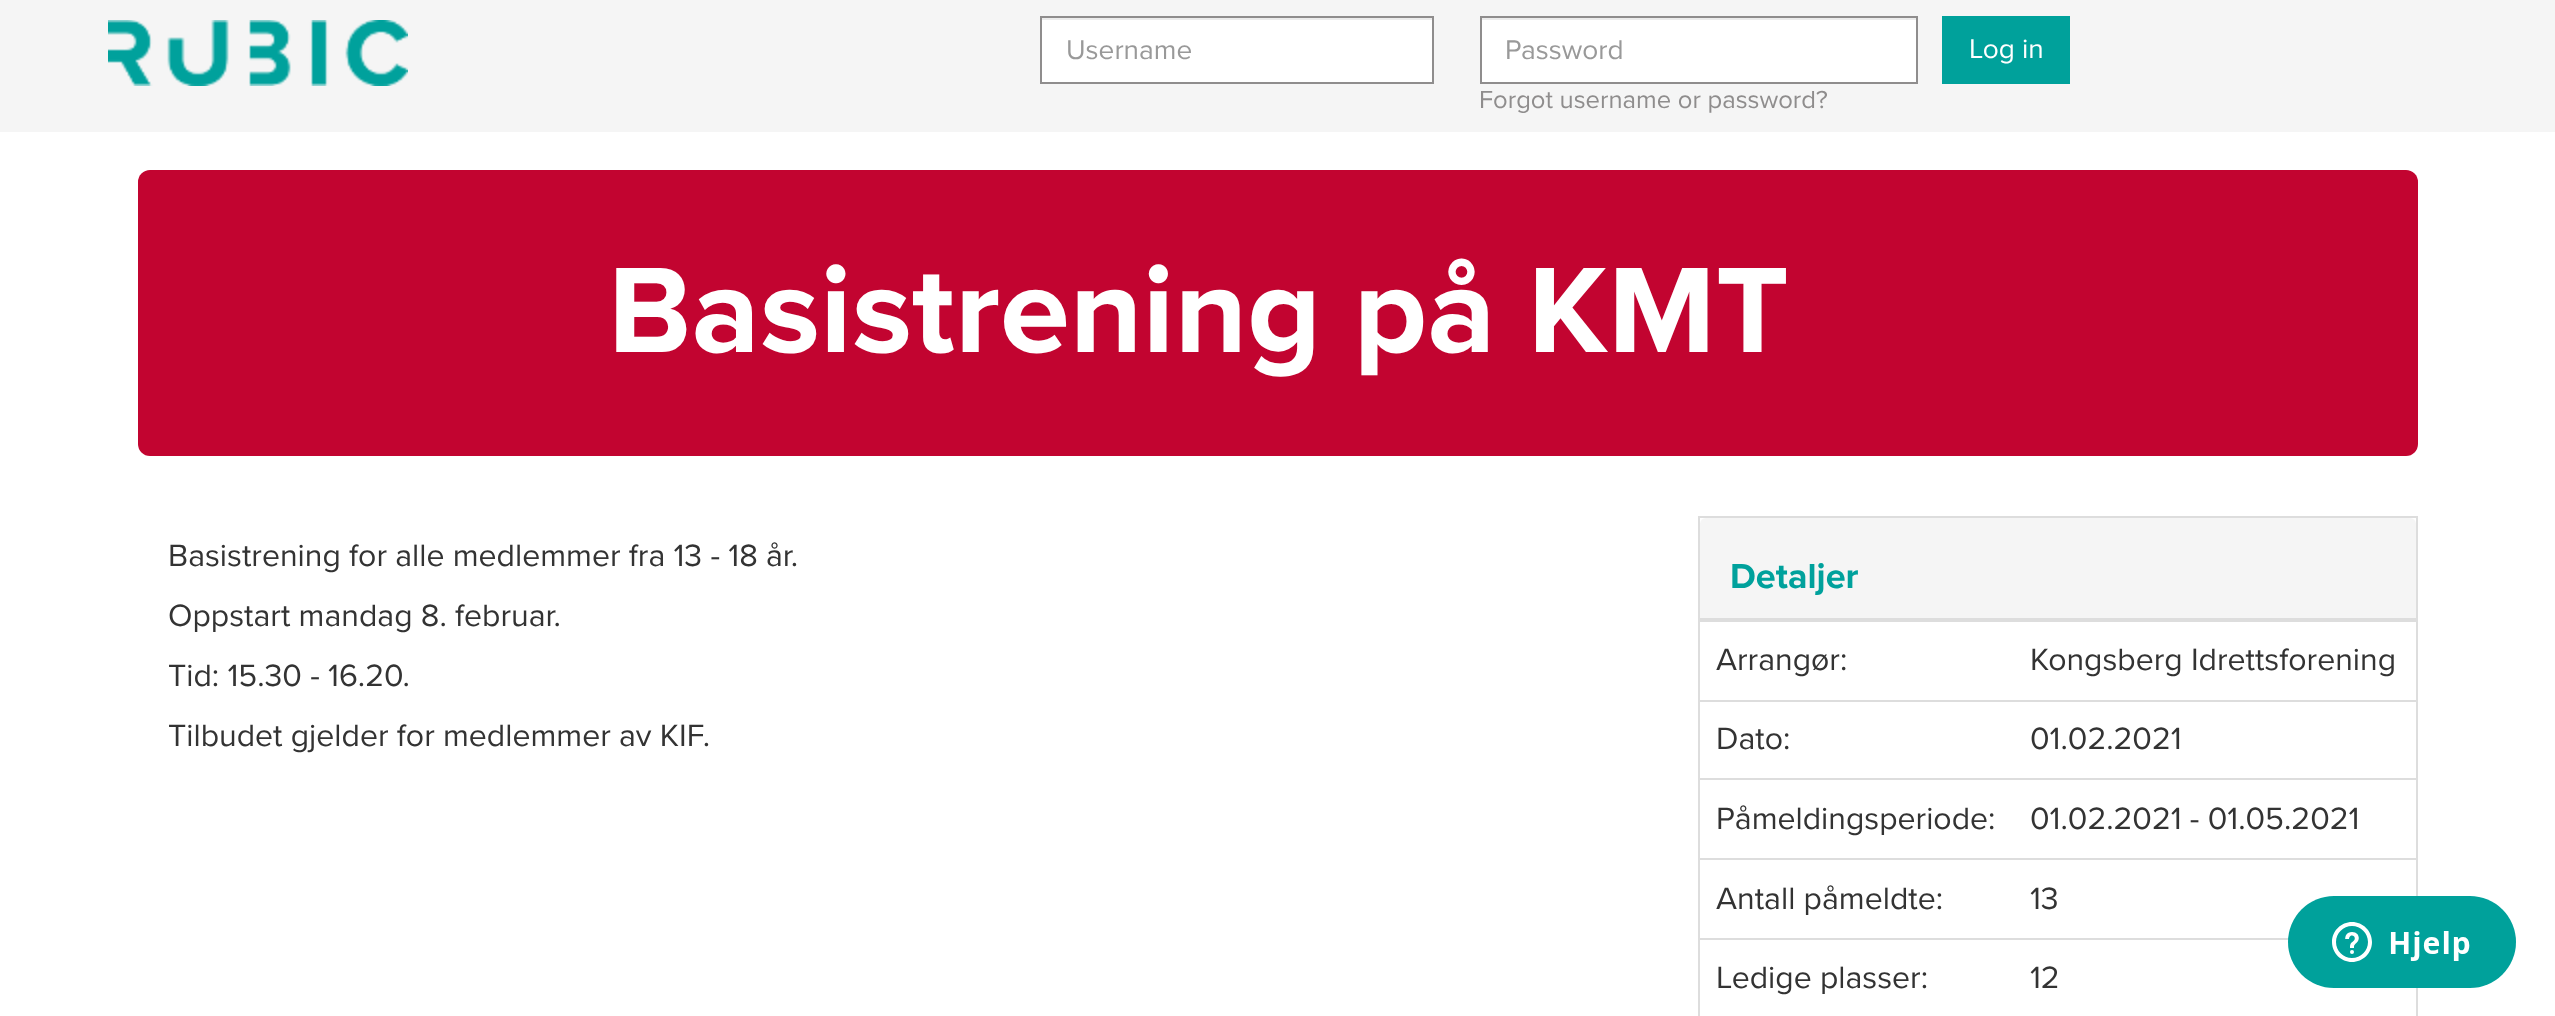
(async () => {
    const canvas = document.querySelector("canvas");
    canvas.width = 2555;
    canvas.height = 1016;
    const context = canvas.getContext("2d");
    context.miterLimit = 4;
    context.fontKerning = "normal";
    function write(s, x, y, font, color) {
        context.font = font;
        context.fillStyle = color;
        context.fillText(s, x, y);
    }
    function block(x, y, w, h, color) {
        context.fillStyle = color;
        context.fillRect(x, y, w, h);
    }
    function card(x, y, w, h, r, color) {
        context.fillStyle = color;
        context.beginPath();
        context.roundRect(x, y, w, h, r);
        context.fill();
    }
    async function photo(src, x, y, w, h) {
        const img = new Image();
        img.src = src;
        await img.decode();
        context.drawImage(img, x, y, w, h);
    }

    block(0, 0, 2555, 1016, "rgb(255, 255, 255)");
    block(0, 0, 2555, 132, "rgb(245, 245, 245)");
    await photo("media/1.png", 108, 20, 300, 66);
    block(1042, 20, 390, 62, "rgb(255, 255, 255)");
    block(1042, 18, 390, 2, "rgb(236, 236, 236)");
    context.strokeStyle = "rgb(143, 141, 141)";
    context.lineWidth = 2;
    context.strokeRect(1041, 17, 392, 66);
    write("Username", 1066, 59, "28px Proxima Nova", "rgb(153, 153, 153)");
    block(1482, 20, 434, 62, "rgb(255, 255, 255)");
    block(1482, 18, 434, 2, "rgb(236, 236, 236)");
    context.strokeRect(1481, 17, 436, 66);
    write("Password", 1505, 59, "28px Proxima Nova", "rgb(153, 153, 153)");
    write("Forgot username or password?", 1479, 108, "25.6px Proxima Nova", "rgb(143, 141, 141)");
    block(1942, 16, 128, 68, "rgb(0, 161, 155)");
    write("Log in", 1969, 58, "28px Proxima Nova", "rgb(255, 255, 255)");
    card(138, 170, 2280, 286, 12, "rgb(194, 4, 48)");
    write("Basistrening på KMT", 608, 352, "bold 126px Proxima Nova", "rgb(255, 255, 255)");
    write("Basistrening for alle medlemmer fra 13 - 18 år.", 168, 566, "32px Proxima Nova", "rgb(51, 51, 51)");
    write("Oppstart mandag 8. februar.", 168, 626, "32px Proxima Nova", "rgb(51, 51, 51)");
    write("Tid: 15.30 - 16.20.", 168, 686, "32px Proxima Nova", "rgb(51, 51, 51)");
    write("Tilbudet gjelder for medlemmer av KIF.", 168, 746, "32px Proxima Nova", "rgb(51, 51, 51)");
    context.strokeStyle = "rgb(221, 221, 221)";
    context.strokeRect(1699, 517, 718, 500);
    context.fillStyle = "rgb(245, 245, 245)";
    context.beginPath();
    context.roundRect(1700, 518, 716, 102, [6, 6, 0, 0]);
    context.fill();
    block(1700, 618, 716, 2, "rgb(221, 221, 221)");
    write("Detaljer", 1730, 588, "bold 36px Proxima Nova", "rgb(0, 161, 156)");
    write("Arrangør:", 1716, 670, "32px Proxima Nova", "rgb(51, 51, 51)");
    block(1700, 620, 718, 2, "rgb(221, 221, 221)");
    write("Kongsberg Idrettsforening", 2030, 670, "32px Proxima Nova", "rgb(51, 51, 51)");
    write("Dato:", 1716, 749, "32px Proxima Nova", "rgb(51, 51, 51)");
    block(1700, 700, 718, 2, "rgb(221, 221, 221)");
    write("01.02.2021", 2030, 749, "32px Proxima Nova", "rgb(51, 51, 51)");
    write("Påmeldingsperiode:", 1716, 829, "32px Proxima Nova", "rgb(51, 51, 51)");
    block(1700, 778, 718, 2, "rgb(221, 221, 221)");
    write("01.02.2021 - 01.05.2021", 2030, 829, "32px Proxima Nova", "rgb(51, 51, 51)");
    write("Antall påmeldte:", 1716, 909, "32px Proxima Nova", "rgb(51, 51, 51)");
    block(1700, 858, 718, 2, "rgb(221, 221, 221)");
    write("13", 2030, 909, "32px Proxima Nova", "rgb(51, 51, 51)");
    write("Ledige plasser:", 1716, 988, "32px Proxima Nova", "rgb(51, 51, 51)");
    block(1700, 938, 589, 2, "rgb(221, 221, 221)");
    write("12", 2030, 988, "32px Proxima Nova", "rgb(51, 51, 51)");
    await photo("media/2.png", 2288, 896, 228, 92);
})();
